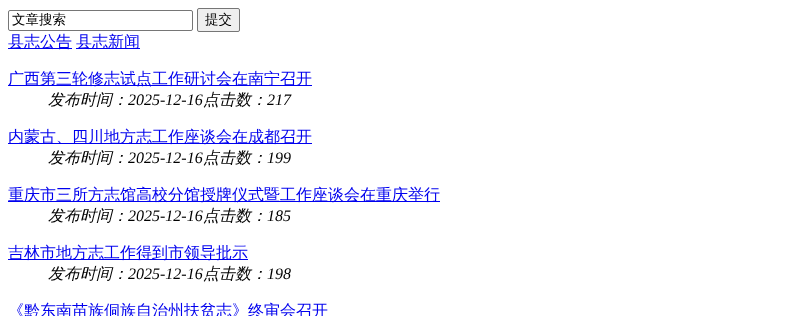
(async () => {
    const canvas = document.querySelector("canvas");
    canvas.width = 803;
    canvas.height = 316;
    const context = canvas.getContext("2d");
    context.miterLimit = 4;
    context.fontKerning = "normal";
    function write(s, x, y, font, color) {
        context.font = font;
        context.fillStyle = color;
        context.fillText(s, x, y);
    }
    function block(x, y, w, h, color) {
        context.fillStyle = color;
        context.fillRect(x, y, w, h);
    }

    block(0, 0, 803, 316, "rgb(255, 255, 255)");
    context.beginPath();
    context.roundRect(8.5, 10.5, 184, 20, 1.5);
    context.strokeStyle = "rgb(118, 118, 118)";
    context.stroke();
    write("文章搜索", 12, 24, "500 13.5px WenQuanYi Zen Hei", "rgb(0, 0, 0)");
    context.fillStyle = "rgb(239, 239, 239)";
    context.beginPath();
    context.roundRect(197.5, 8.5, 42, 23, 1.5);
    context.fill();
    context.stroke();
    write("提交", 205, 24, "500 13.5px WenQuanYi Zen Hei", "rgb(0, 0, 0)");
    block(8, 48, 64, 1, "rgb(0, 0, 238)");
    write("县志公告", 8, 47, "500 16px WenQuanYi Zen Hei", "rgb(0, 0, 238)");
    block(76, 48, 64, 1, "rgb(0, 0, 238)");
    write("县志新闻", 76, 47, "500 16px WenQuanYi Zen Hei", "rgb(0, 0, 238)");
    block(8, 85, 304, 1, "rgb(0, 0, 238)");
    write("广西第三轮修志试点工作研讨会在南宁召开", 8, 84, "500 16px WenQuanYi Zen Hei", "rgb(0, 0, 238)");
    write("发布时间：", 48, 105, "italic 500 16px WenQuanYi Zen Hei", "rgb(0, 0, 0)");
    write("2025-12-16", 128, 105, "italic 16px Liberation Serif", "rgb(0, 0, 0)");
    write("点击数：", 203, 105, "italic 500 16px WenQuanYi Zen Hei", "rgb(0, 0, 0)");
    write("217", 267, 105, "italic 16px Liberation Serif", "rgb(0, 0, 0)");
    block(8, 143, 304, 1, "rgb(0, 0, 238)");
    write("内蒙古、四川地方志工作座谈会在成都召开", 8, 142, "500 16px WenQuanYi Zen Hei", "rgb(0, 0, 238)");
    write("发布时间：", 48, 163, "italic 500 16px WenQuanYi Zen Hei", "rgb(0, 0, 0)");
    write("2025-12-16", 128, 163, "italic 16px Liberation Serif", "rgb(0, 0, 0)");
    write("点击数：", 203, 163, "italic 500 16px WenQuanYi Zen Hei", "rgb(0, 0, 0)");
    write("199", 267, 163, "italic 16px Liberation Serif", "rgb(0, 0, 0)");
    block(8, 201, 432, 1, "rgb(0, 0, 238)");
    write("重庆市三所方志馆高校分馆授牌仪式暨工作座谈会在重庆举行", 8, 200, "500 16px WenQuanYi Zen Hei", "rgb(0, 0, 238)");
    write("发布时间：", 48, 221, "italic 500 16px WenQuanYi Zen Hei", "rgb(0, 0, 0)");
    write("2025-12-16", 128, 221, "italic 16px Liberation Serif", "rgb(0, 0, 0)");
    write("点击数：", 203, 221, "italic 500 16px WenQuanYi Zen Hei", "rgb(0, 0, 0)");
    write("185", 267, 221, "italic 16px Liberation Serif", "rgb(0, 0, 0)");
    block(8, 259, 240, 1, "rgb(0, 0, 238)");
    write("吉林市地方志工作得到市领导批示", 8, 258, "500 16px WenQuanYi Zen Hei", "rgb(0, 0, 238)");
    write("发布时间：", 48, 279, "italic 500 16px WenQuanYi Zen Hei", "rgb(0, 0, 0)");
    write("2025-12-16", 128, 279, "italic 16px Liberation Serif", "rgb(0, 0, 0)");
    write("点击数：", 203, 279, "italic 500 16px WenQuanYi Zen Hei", "rgb(0, 0, 0)");
    write("198", 267, 279, "italic 16px Liberation Serif", "rgb(0, 0, 0)");
    write("《黔东南苗族侗族自治州扶贫志》终审会召开", 8, 316, "500 16px WenQuanYi Zen Hei", "rgb(0, 0, 238)");
})();
